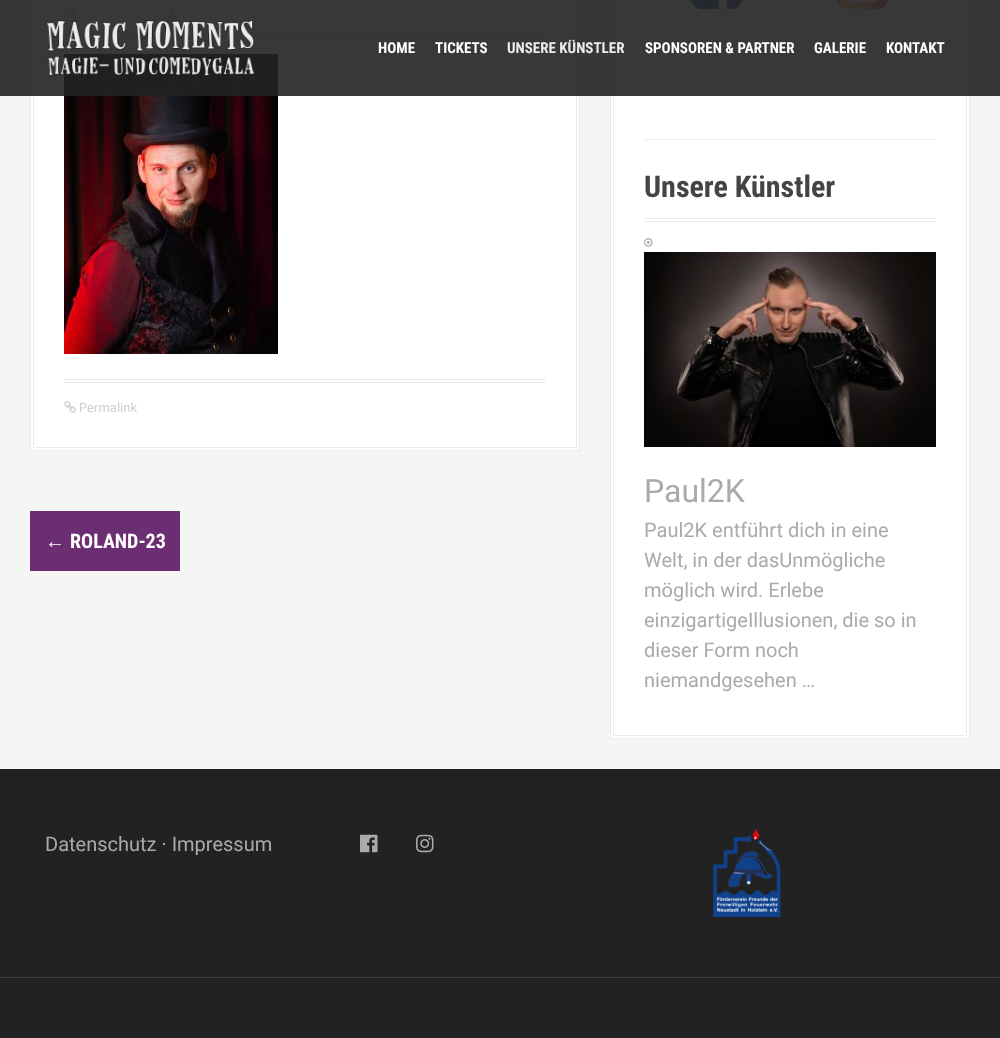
(async () => {
    const canvas = document.querySelector("canvas");
    canvas.width = 1000;
    canvas.height = 1038;
    const context = canvas.getContext("2d");
    context.miterLimit = 4;
    context.fontKerning = "normal";
    function write(s, x, y, font, color) {
        context.font = font;
        context.fillStyle = color;
        context.fillText(s, x, y);
    }
    function block(x, y, w, h, color) {
        context.fillStyle = color;
        context.fillRect(x, y, w, h);
    }
    async function photo(src, x, y, w, h) {
        const img = new Image();
        img.src = src;
        await img.decode();
        context.drawImage(img, x, y, w, h);
    }

    block(0, 0, 1000, 1038, "rgb(245, 245, 245)");
    context.fillStyle = "rgb(255, 255, 255)";
    context.beginPath();
    context.rect(30.5, -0.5, 549, 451);
    context.fill();
    context.strokeStyle = "rgb(235, 235, 235)";
    context.stroke();
    context.strokeRect(33.5, -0.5, 543, 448);
    block(64, 35, 482, 1, "rgb(235, 235, 235)");
    block(64, 38, 482, 1, "rgb(235, 235, 235)");
    await photo("media/2.png", 64, 7, 12, 14);
    await photo("media/3.png", 168, 8, 10, 12);
    await photo("media/4.png", 64, 54, 214, 300);
    context.fillStyle = "rgb(255, 255, 255)";
    context.beginPath();
    context.rect(610.5, -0.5, 359, 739);
    context.fill();
    context.stroke();
    context.strokeRect(613.5, -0.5, 353, 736);
    await photo("media/6.png", 691, 0, 51, 9);
    await photo("media/7.png", 837, 0, 51, 9);
    block(0, 0, 1000, 96, "rgba(34, 34, 34, 0.9)");
    await photo("media/1.png", 45, 20, 210, 56);
    write("HOME", 378, 53, "bold 15px Roboto Condensed", "rgb(255, 255, 255)");
    write("TICKETS", 435, 53, "bold 15px Roboto Condensed", "rgb(255, 255, 255)");
    write("UNSERE KÜNSTLER", 507, 53, "bold 15px Roboto Condensed", "rgb(235, 235, 235)");
    write("SPONSOREN & PARTNER", 645, 53, "bold 15px Roboto Condensed", "rgb(255, 255, 255)");
    write("GALERIE", 814, 53, "bold 15px Roboto Condensed", "rgb(255, 255, 255)");
    write("KONTAKT", 886, 53, "bold 15px Roboto Condensed", "rgb(255, 255, 255)");
    block(64, 379, 482, 1, "rgb(235, 235, 235)");
    block(64, 382, 482, 1, "rgb(235, 235, 235)");
    await photo("media/5.png", 64, 401, 12, 12);
    write("Permalink", 79, 412, "13px Roboto", "rgb(207, 207, 207)");
    context.fillStyle = "rgb(173, 173, 173)";
    context.filter = "blur(0.5px)";
    context.beginPath();
    context.rect(30, 511, 150, 60);
    context.fill();
    context.filter = "none";
    block(30, 511, 150, 60, "rgb(107, 46, 115)");
    write("←", 45, 548, "bold 20px Liberation Sans", "rgb(255, 255, 255)");
    write("ROLAND-23", 70, 548, "bold 20px Roboto Condensed", "rgb(255, 255, 255)");
    block(644, 139, 292, 1, "rgb(238, 238, 238)");
    block(644, 218, 292, 1, "rgb(235, 235, 235)");
    block(644, 221, 292, 1, "rgb(235, 235, 235)");
    write("Unsere Künstler", 644, 197, "bold 30px Roboto Condensed", "rgb(68, 68, 68)");
    await photo("media/8.png", 644, 238, 9, 9);
    await photo("media/9.png", 644, 252, 292, 195);
    write("Paul2K", 644, 502, "32px Roboto", "rgb(170, 170, 170)");
    write("Paul2K entführt dich in eine", 644, 537, "20px Roboto", "rgb(170, 170, 170)");
    write("Welt, in der dasUnmögliche", 644, 567, "20px Roboto", "rgb(170, 170, 170)");
    write("möglich wird. Erlebe", 644, 597, "20px Roboto", "rgb(170, 170, 170)");
    write("einzigartigeIllusionen, die so in", 644, 627, "20px Roboto", "rgb(170, 170, 170)");
    write("dieser Form noch", 644, 657, "20px Roboto", "rgb(170, 170, 170)");
    write("niemandgesehen …", 644, 687, "20px Roboto", "rgb(170, 170, 170)");
    block(0, 769, 1000, 208, "rgb(34, 34, 34)");
    write("Datenschutz · Impressum", 45, 851, "20px Roboto", "rgb(170, 170, 170)");
    await photo("media/10.png", 360, 834, 18, 19);
    await photo("media/11.png", 416, 834, 18, 19);
    await photo("media/12.png", 713, 829, 68, 88);
    block(0, 978, 1000, 60, "rgb(34, 34, 34)");
    block(0, 977, 1000, 1, "rgb(58, 58, 58)");
})();
